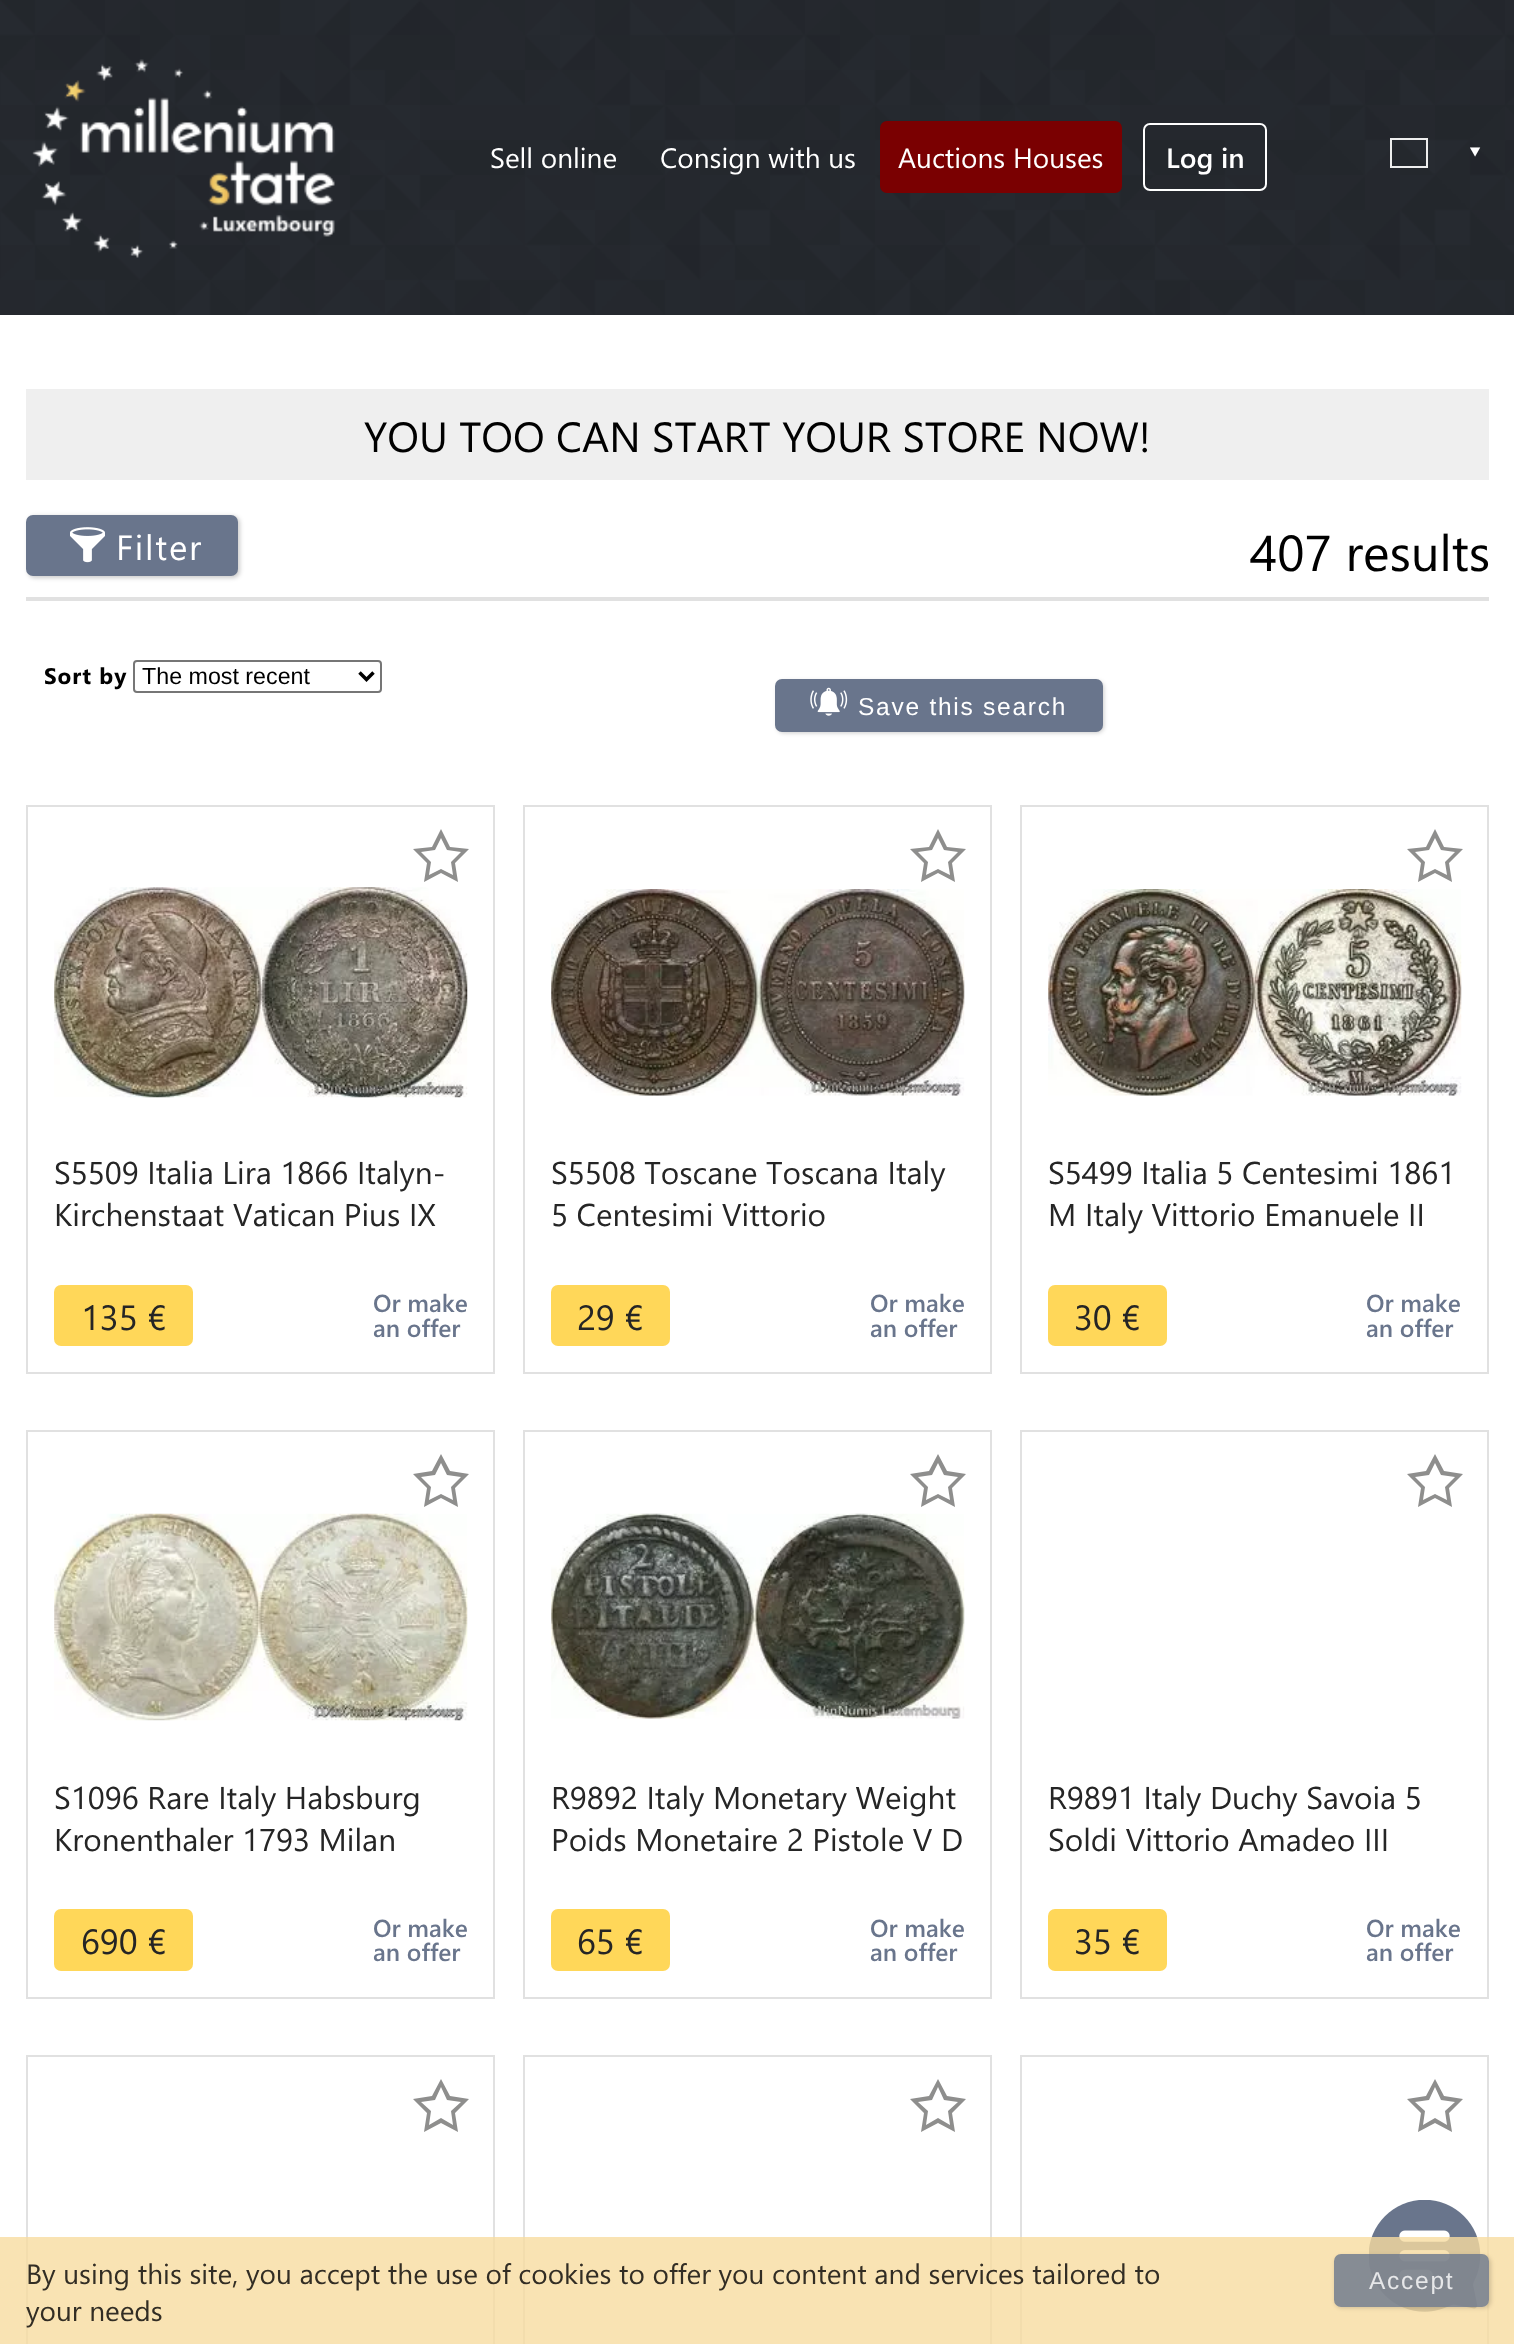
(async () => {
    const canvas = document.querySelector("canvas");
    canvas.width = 1514;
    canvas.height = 2344;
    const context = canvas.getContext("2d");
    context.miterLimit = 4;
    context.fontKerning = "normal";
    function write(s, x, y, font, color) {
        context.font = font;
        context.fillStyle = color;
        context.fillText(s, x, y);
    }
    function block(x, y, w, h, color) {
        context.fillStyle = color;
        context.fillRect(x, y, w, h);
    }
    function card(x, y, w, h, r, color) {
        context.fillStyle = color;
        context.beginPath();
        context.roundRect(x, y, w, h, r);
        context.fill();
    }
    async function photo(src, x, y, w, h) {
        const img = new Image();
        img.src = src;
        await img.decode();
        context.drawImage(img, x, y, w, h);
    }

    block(0, 0, 1514, 2344, "rgb(255, 255, 255)");
    await photo("media/1.png", 0, 0, 1514, 315);
    await photo("media/2.png", 32, 59, 303, 199);
    write("Sell online", 490, 168, "28px Segoe UI", "rgb(255, 255, 255)");
    write("Consign with us", 660, 168, "28px Segoe UI", "rgb(255, 255, 255)");
    card(880, 121, 242, 72, 7, "rgb(122, 0, 1)");
    write("Auctions Houses", 898, 168, "28px Segoe UI", "rgb(255, 255, 255)");
    context.beginPath();
    context.roundRect(1144, 124, 122, 66, 6);
    context.strokeStyle = "rgb(255, 255, 255)";
    context.lineWidth = 2;
    context.stroke();
    write("Log in", 1166, 168, "600 28px Segoe UI", "rgb(255, 255, 255)");
    context.strokeStyle = "rgb(238, 238, 238)";
    context.strokeRect(1391, 139, 36, 28);
    context.font = "35px Noto Sans";
    context.save();
    context.translate(1462, 145);
    context.rotate(90 * Math.PI / 180);
    context.fillText("‣", 0, 0);
    context.restore();
    block(26, 389, 1463, 91, "rgb(239, 239, 239)");
    write("YOU TOO CAN START YOUR STORE NOW!", 364, 452, "42px Segoe UI", "rgb(0, 0, 0)");
    block(26, 597, 1463, 4, "rgb(225, 225, 225)");
    write("407 results", 1250, 571, "50.5px Segoe UI", "rgb(0, 0, 0)");
    context.letterSpacing = "1px";
    write("Sort by", 44, 684, "bold 22.5px Segoe UI", "rgb(0, 0, 0)");
    context.beginPath();
    context.roundRect(134, 661, 247, 31, 3);
    context.strokeStyle = "rgb(118, 118, 118)";
    context.stroke();
    context.beginPath();
    context.moveTo(359.5, 672.5);
    context.lineTo(366.5, 679.5);
    context.lineTo(373.5, 672.5);
    context.strokeStyle = "rgb(0, 0, 0)";
    context.lineWidth = 3.5;
    context.stroke();
    context.letterSpacing = "0px";
    write("The most recent", 142, 684, "23.25px Liberation Sans", "rgb(0, 0, 0)");
    context.fillStyle = "rgba(0, 0, 0, 0.2)";
    context.filter = "blur(2px)";
    context.beginPath();
    context.roundRect(777, 681, 327, 52, 7);
    context.fill();
    context.filter = "none";
    card(775, 679, 328, 53, 7, "rgb(105, 117, 140)");
    await photo("media/3.png", 810, 687, 38, 29);
    context.letterSpacing = "1.75px";
    write("Save this search", 858, 715, "24.5px Liberation Sans", "rgb(255, 255, 255)");
    context.strokeStyle = "rgb(225, 225, 225)";
    context.lineWidth = 2;
    context.strokeRect(27, 806, 467, 567);
    await photo("media/4.png", 54, 887, 414, 211);
    context.beginPath();
    context.arc(441, 856, 35, 0, Math.PI * 2);
    context.fill();
    context.fillStyle = "rgb(142, 142, 141)";
    context.beginPath();
    context.moveTo(469, 849);
    context.lineTo(450, 847);
    context.lineTo(441, 829);
    context.lineTo(432, 847);
    context.lineTo(413, 849);
    context.lineTo(427, 863);
    context.lineTo(424, 882);
    context.lineTo(441, 873);
    context.lineTo(458, 882);
    context.lineTo(455, 863);
    context.closePath();
    context.moveTo(441, 869);
    context.lineTo(429, 875);
    context.lineTo(431, 862);
    context.lineTo(421, 852);
    context.lineTo(435, 850);
    context.lineTo(441, 838);
    context.lineTo(447, 850);
    context.lineTo(461, 852);
    context.lineTo(451, 862);
    context.lineTo(453, 875);
    context.closePath();
    context.fill();
    context.letterSpacing = "0px";
    write("S5509 Italia Lira 1866 Italyn-", 54, 1184, "31.5px Segoe UI", "rgb(37, 37, 37)");
    write("Kirchenstaat Vatican Pius IX", 54, 1226, "31.5px Segoe UI", "rgb(37, 37, 37)");
    card(54, 1285, 139, 61, 7, "rgb(255, 215, 89)");
    write("135 €", 81, 1330, "35px Segoe UI", "rgb(37, 37, 37)");
    write("Or make", 373, 1312, "600 24.5px Segoe UI", "rgb(105, 117, 140)");
    write("an offer", 373, 1337, "600 24.5px Segoe UI", "rgb(105, 117, 140)");
    context.strokeRect(524, 806, 467, 567);
    context.fillStyle = "rgb(142, 142, 141)";
    context.beginPath();
    context.moveTo(966, 849);
    context.lineTo(947, 847);
    context.lineTo(938, 829);
    context.lineTo(929, 847);
    context.lineTo(910, 849);
    context.lineTo(924, 863);
    context.lineTo(921, 882);
    context.lineTo(938, 873);
    context.lineTo(955, 882);
    context.lineTo(952, 863);
    context.closePath();
    context.moveTo(938, 869);
    context.lineTo(926, 875);
    context.lineTo(928, 862);
    context.lineTo(918, 852);
    context.lineTo(932, 850);
    context.lineTo(938, 838);
    context.lineTo(944, 850);
    context.lineTo(958, 852);
    context.lineTo(948, 862);
    context.lineTo(950, 875);
    context.closePath();
    context.fill();
    await photo("media/5.png", 551, 889, 414, 207);
    write("S5508 Toscane Toscana Italy", 551, 1184, "31.5px Segoe UI", "rgb(37, 37, 37)");
    write("5 Centesimi Vittorio", 551, 1226, "31.5px Segoe UI", "rgb(37, 37, 37)");
    card(551, 1285, 119, 61, 7, "rgb(255, 215, 89)");
    write("29 €", 577, 1330, "35px Segoe UI", "rgb(37, 37, 37)");
    write("Or make", 870, 1312, "600 24.5px Segoe UI", "rgb(105, 117, 140)");
    write("an offer", 870, 1337, "600 24.5px Segoe UI", "rgb(105, 117, 140)");
    context.strokeRect(1021, 806, 467, 567);
    context.fillStyle = "rgb(142, 142, 141)";
    context.beginPath();
    context.moveTo(1463, 849);
    context.lineTo(1444, 847);
    context.lineTo(1435, 829);
    context.lineTo(1426, 847);
    context.lineTo(1407, 849);
    context.lineTo(1421, 863);
    context.lineTo(1418, 882);
    context.lineTo(1435, 873);
    context.lineTo(1452, 882);
    context.lineTo(1449, 863);
    context.closePath();
    context.moveTo(1435, 869);
    context.lineTo(1423, 875);
    context.lineTo(1425, 862);
    context.lineTo(1415, 852);
    context.lineTo(1429, 850);
    context.lineTo(1435, 838);
    context.lineTo(1441, 850);
    context.lineTo(1455, 852);
    context.lineTo(1445, 862);
    context.lineTo(1447, 875);
    context.closePath();
    context.fill();
    await photo("media/6.png", 1048, 889, 414, 207);
    write("S5499 Italia 5 Centesimi 1861", 1048, 1184, "31.5px Segoe UI", "rgb(37, 37, 37)");
    write("M Italy Vittorio Emanuele II", 1048, 1226, "31.5px Segoe UI", "rgb(37, 37, 37)");
    card(1048, 1285, 119, 61, 7, "rgb(255, 215, 89)");
    write("30 €", 1074, 1330, "35px Segoe UI", "rgb(37, 37, 37)");
    write("Or make", 1366, 1312, "600 24.5px Segoe UI", "rgb(105, 117, 140)");
    write("an offer", 1366, 1337, "600 24.5px Segoe UI", "rgb(105, 117, 140)");
    context.strokeRect(27, 1431, 467, 567);
    context.fillStyle = "rgb(142, 142, 141)";
    context.beginPath();
    context.moveTo(469, 1474);
    context.lineTo(450, 1471);
    context.lineTo(441, 1454);
    context.lineTo(432, 1471);
    context.lineTo(413, 1474);
    context.lineTo(427, 1488);
    context.lineTo(424, 1507);
    context.lineTo(441, 1498);
    context.lineTo(458, 1507);
    context.lineTo(455, 1488);
    context.closePath();
    context.moveTo(441, 1494);
    context.lineTo(429, 1500);
    context.lineTo(431, 1487);
    context.lineTo(421, 1477);
    context.lineTo(435, 1475);
    context.lineTo(441, 1463);
    context.lineTo(447, 1475);
    context.lineTo(461, 1477);
    context.lineTo(451, 1487);
    context.lineTo(453, 1500);
    context.closePath();
    context.fill();
    await photo("media/7.png", 54, 1513, 414, 208);
    write("S1096 Rare Italy Habsburg", 54, 1809, "31.5px Segoe UI", "rgb(37, 37, 37)");
    write("Kronenthaler 1793 Milan", 54, 1851, "31.5px Segoe UI", "rgb(37, 37, 37)");
    card(54, 1909, 139, 62, 7, "rgb(255, 215, 89)");
    write("690 €", 81, 1954, "35px Segoe UI", "rgb(37, 37, 37)");
    write("Or make", 373, 1937, "600 24.5px Segoe UI", "rgb(105, 117, 140)");
    write("an offer", 373, 1961, "600 24.5px Segoe UI", "rgb(105, 117, 140)");
    context.strokeRect(524, 1431, 467, 567);
    context.fillStyle = "rgb(142, 142, 141)";
    context.beginPath();
    context.moveTo(966, 1474);
    context.lineTo(947, 1471);
    context.lineTo(938, 1454);
    context.lineTo(929, 1471);
    context.lineTo(910, 1474);
    context.lineTo(924, 1488);
    context.lineTo(921, 1507);
    context.lineTo(938, 1498);
    context.lineTo(955, 1507);
    context.lineTo(952, 1488);
    context.closePath();
    context.moveTo(938, 1494);
    context.lineTo(926, 1500);
    context.lineTo(928, 1487);
    context.lineTo(918, 1477);
    context.lineTo(932, 1475);
    context.lineTo(938, 1463);
    context.lineTo(944, 1475);
    context.lineTo(958, 1477);
    context.lineTo(948, 1487);
    context.lineTo(950, 1500);
    context.closePath();
    context.fill();
    await photo("media/8.png", 551, 1513, 414, 206);
    write("R9892 Italy Monetary Weight", 551, 1809, "31.5px Segoe UI", "rgb(37, 37, 37)");
    write("Poids Monetaire 2 Pistole V D", 551, 1851, "31.5px Segoe UI", "rgb(37, 37, 37)");
    card(551, 1909, 119, 62, 7, "rgb(255, 215, 89)");
    write("65 €", 577, 1954, "35px Segoe UI", "rgb(37, 37, 37)");
    write("Or make", 870, 1937, "600 24.5px Segoe UI", "rgb(105, 117, 140)");
    write("an offer", 870, 1961, "600 24.5px Segoe UI", "rgb(105, 117, 140)");
    context.strokeRect(1021, 1431, 467, 567);
    context.fillStyle = "rgb(142, 142, 141)";
    context.beginPath();
    context.moveTo(1463, 1474);
    context.lineTo(1444, 1471);
    context.lineTo(1435, 1454);
    context.lineTo(1426, 1471);
    context.lineTo(1407, 1474);
    context.lineTo(1421, 1488);
    context.lineTo(1418, 1507);
    context.lineTo(1435, 1498);
    context.lineTo(1452, 1507);
    context.lineTo(1449, 1488);
    context.closePath();
    context.moveTo(1435, 1494);
    context.lineTo(1423, 1500);
    context.lineTo(1425, 1487);
    context.lineTo(1415, 1477);
    context.lineTo(1429, 1475);
    context.lineTo(1435, 1463);
    context.lineTo(1441, 1475);
    context.lineTo(1455, 1477);
    context.lineTo(1445, 1487);
    context.lineTo(1447, 1500);
    context.closePath();
    context.fill();
    write("R9891 Italy Duchy Savoia 5", 1048, 1809, "31.5px Segoe UI", "rgb(37, 37, 37)");
    write("Soldi Vittorio Amadeo III", 1048, 1851, "31.5px Segoe UI", "rgb(37, 37, 37)");
    card(1048, 1909, 119, 62, 7, "rgb(255, 215, 89)");
    write("35 €", 1074, 1954, "35px Segoe UI", "rgb(37, 37, 37)");
    write("Or make", 1366, 1937, "600 24.5px Segoe UI", "rgb(105, 117, 140)");
    write("an offer", 1366, 1961, "600 24.5px Segoe UI", "rgb(105, 117, 140)");
    context.strokeRect(27, 2056, 467, 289);
    context.fillStyle = "rgb(142, 142, 141)";
    context.beginPath();
    context.moveTo(469, 2099);
    context.lineTo(450, 2096);
    context.lineTo(441, 2079);
    context.lineTo(432, 2096);
    context.lineTo(413, 2099);
    context.lineTo(427, 2113);
    context.lineTo(424, 2132);
    context.lineTo(441, 2123);
    context.lineTo(458, 2132);
    context.lineTo(455, 2113);
    context.closePath();
    context.moveTo(441, 2118);
    context.lineTo(429, 2125);
    context.lineTo(431, 2111);
    context.lineTo(421, 2102);
    context.lineTo(435, 2100);
    context.lineTo(441, 2087);
    context.lineTo(447, 2100);
    context.lineTo(461, 2102);
    context.lineTo(451, 2111);
    context.lineTo(453, 2125);
    context.closePath();
    context.fill();
    context.strokeRect(524, 2056, 467, 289);
    context.beginPath();
    context.moveTo(966, 2099);
    context.lineTo(947, 2096);
    context.lineTo(938, 2079);
    context.lineTo(929, 2096);
    context.lineTo(910, 2099);
    context.lineTo(924, 2113);
    context.lineTo(921, 2132);
    context.lineTo(938, 2123);
    context.lineTo(955, 2132);
    context.lineTo(952, 2113);
    context.closePath();
    context.moveTo(938, 2118);
    context.lineTo(926, 2125);
    context.lineTo(928, 2111);
    context.lineTo(918, 2102);
    context.lineTo(932, 2100);
    context.lineTo(938, 2087);
    context.lineTo(944, 2100);
    context.lineTo(958, 2102);
    context.lineTo(948, 2111);
    context.lineTo(950, 2125);
    context.closePath();
    context.fill();
    context.strokeRect(1021, 2056, 467, 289);
    context.beginPath();
    context.moveTo(1463, 2099);
    context.lineTo(1444, 2096);
    context.lineTo(1435, 2079);
    context.lineTo(1426, 2096);
    context.lineTo(1407, 2099);
    context.lineTo(1421, 2113);
    context.lineTo(1418, 2132);
    context.lineTo(1435, 2123);
    context.lineTo(1452, 2132);
    context.lineTo(1449, 2113);
    context.closePath();
    context.moveTo(1435, 2118);
    context.lineTo(1423, 2125);
    context.lineTo(1425, 2111);
    context.lineTo(1415, 2102);
    context.lineTo(1429, 2100);
    context.lineTo(1435, 2087);
    context.lineTo(1441, 2100);
    context.lineTo(1455, 2102);
    context.lineTo(1445, 2111);
    context.lineTo(1447, 2125);
    context.closePath();
    context.fill();
    context.fillStyle = "rgba(0, 0, 0, 0.2)";
    context.filter = "blur(2px)";
    context.beginPath();
    context.roundRect(28, 516, 212, 62, 7);
    context.fill();
    context.filter = "none";
    card(26, 515, 212, 61, 7, "rgb(105, 117, 140)");
    await photo("media/9.png", 70, 527, 35, 36);
    context.letterSpacing = "1.75px";
    write("Filter", 116, 560, "35px Segoe UI", "rgb(255, 255, 255)");
    await photo("media/10.png", 1369, 2200, 112, 112);
    block(0, 2237, 1514, 107, "rgba(247, 220, 160, 0.8)");
    context.letterSpacing = "0px";
    write("By using this site, you accept the use of cookies to offer you content and services tailored to", 26, 2284, "28px Segoe UI", "rgb(50, 45, 36)");
    write("your needs", 26, 2321, "28px Segoe UI", "rgb(50, 45, 36)");
    context.save();
    context.beginPath();
    context.moveTo(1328, 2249);
    context.lineTo(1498, 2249);
    context.lineTo(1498, 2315);
    context.lineTo(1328, 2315);
    context.closePath();
    context.moveTo(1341, 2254);
    context.lineTo(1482, 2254);
    context.bezierCurveTo(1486, 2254, 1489, 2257, 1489, 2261);
    context.lineTo(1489, 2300);
    context.bezierCurveTo(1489, 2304, 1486, 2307, 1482, 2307);
    context.lineTo(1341, 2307);
    context.bezierCurveTo(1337, 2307, 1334, 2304, 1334, 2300);
    context.lineTo(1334, 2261);
    context.bezierCurveTo(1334, 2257, 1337, 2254, 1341, 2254);
    context.closePath();
    context.clip("evenodd");
    context.fillStyle = "rgba(0, 0, 0, 0.16)";
    context.filter = "blur(2px)";
    context.beginPath();
    context.roundRect(1335, 2256, 156, 52, 7);
    context.fill();
    context.filter = "none";
    context.restore();
    card(1334, 2254, 155, 53, 7, "rgba(105, 117, 140, 0.8)");
    context.letterSpacing = "1.75px";
    write("Accept", 1369, 2289, "24.5px Liberation Sans", "rgb(230, 231, 233)");
})();
